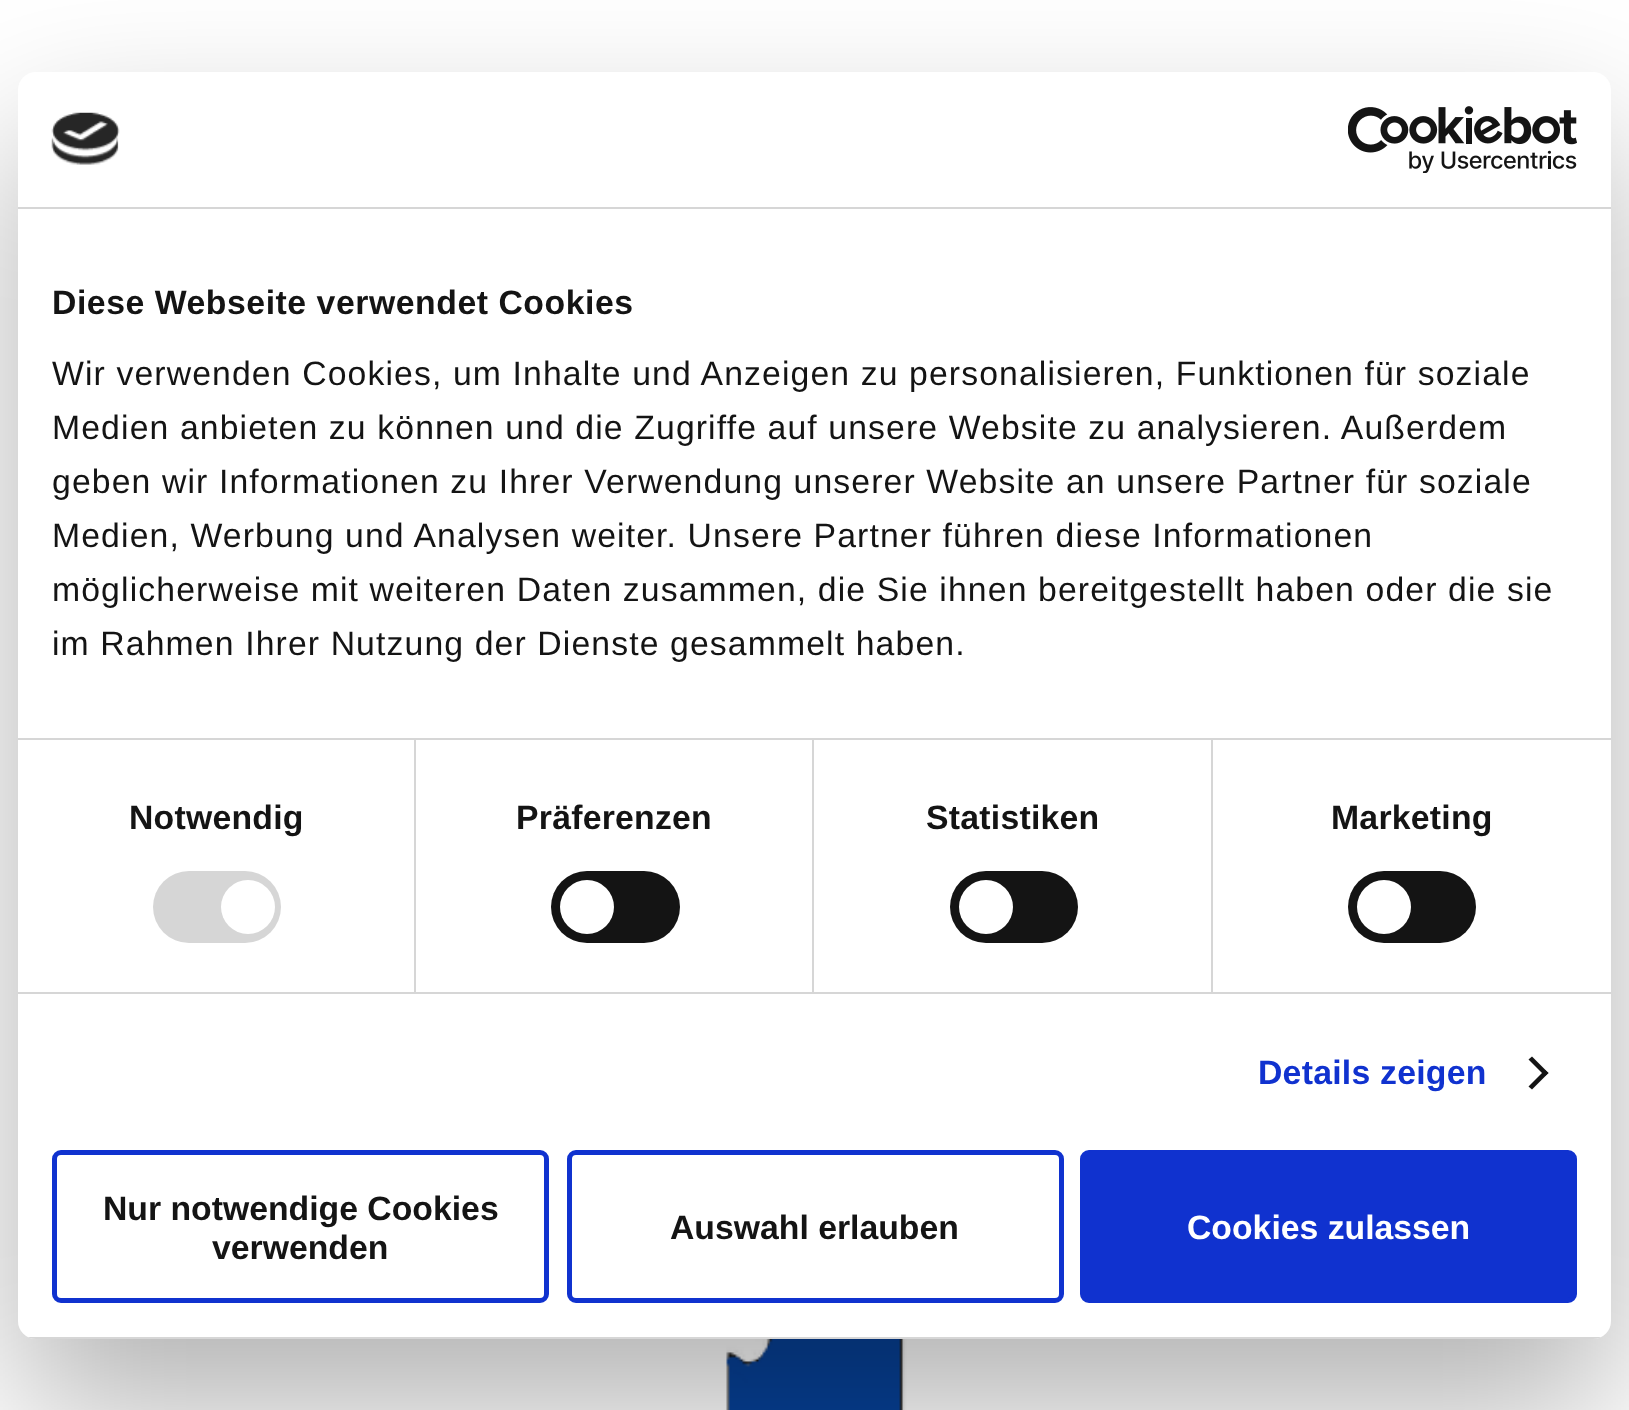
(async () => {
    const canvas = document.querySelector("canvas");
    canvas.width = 1629;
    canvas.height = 1410;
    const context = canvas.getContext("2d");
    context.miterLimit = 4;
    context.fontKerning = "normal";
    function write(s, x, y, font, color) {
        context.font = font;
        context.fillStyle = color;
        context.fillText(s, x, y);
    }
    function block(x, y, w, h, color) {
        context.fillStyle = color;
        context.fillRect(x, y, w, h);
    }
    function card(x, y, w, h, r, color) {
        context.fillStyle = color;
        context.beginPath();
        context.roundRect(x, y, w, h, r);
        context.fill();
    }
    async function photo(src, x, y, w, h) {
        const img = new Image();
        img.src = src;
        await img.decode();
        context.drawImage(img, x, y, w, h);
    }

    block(0, 0, 1629, 1410, "rgb(255, 255, 255)");
    await photo("media/3.png", 726, 1339, 181, 71);
    context.fillStyle = "rgba(0, 0, 0, 0.3)";
    context.filter = "blur(76.5px)";
    context.beginPath();
    context.roundRect(18, 144, 1593, 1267, 18);
    context.fill();
    context.filter = "none";
    card(18, 72, 1593, 1267, 18, "rgb(255, 255, 255)");
    block(18, 207, 1593, 2, "rgb(214, 214, 214)");
    await photo("media/1.png", 51, 112, 69, 53);
    await photo("media/2.png", 1348, 106, 229, 67);
    block(18, 738, 1593, 2, "rgb(214, 214, 214)");
    context.letterSpacing = "0.55px";
    write("Diese Webseite verwendet Cookies", 52, 314, "bold 33.75px Liberation Sans", "rgb(20, 20, 20)");
    context.letterSpacing = "1.12px";
    write("Wir verwenden Cookies, um Inhalte und Anzeigen zu personalisieren, Funktionen für soziale", 52, 385, "33.75px Liberation Sans", "rgb(20, 20, 20)");
    write("Medien anbieten zu können und die Zugriffe auf unsere Website zu analysieren. Außerdem", 52, 439, "33.75px Liberation Sans", "rgb(20, 20, 20)");
    write("geben wir Informationen zu Ihrer Verwendung unserer Website an unsere Partner für soziale", 52, 493, "33.75px Liberation Sans", "rgb(20, 20, 20)");
    write("Medien, Werbung und Analysen weiter. Unsere Partner führen diese Informationen", 52, 547, "33.75px Liberation Sans", "rgb(20, 20, 20)");
    write("möglicherweise mit weiteren Daten zusammen, die Sie ihnen bereitgestellt haben oder die sie", 52, 601, "33.75px Liberation Sans", "rgb(20, 20, 20)");
    write("im Rahmen Ihrer Nutzung der Dienste gesammelt haben.", 52, 655, "33.75px Liberation Sans", "rgb(20, 20, 20)");
    block(18, 992, 1593, 2, "rgb(214, 214, 214)");
    block(414, 740, 2, 252, "rgb(214, 214, 214)");
    context.letterSpacing = "0.25px";
    write("Notwendig", 129, 829, "bold 33.75px Liberation Sans", "rgb(20, 20, 20)");
    card(153, 871, 128, 72, 36, "rgb(214, 214, 214)");
    context.fillStyle = "rgb(255, 255, 255)";
    context.beginPath();
    context.arc(248, 907, 27, 0, Math.PI * 2);
    context.fill();
    block(812, 740, 2, 252, "rgb(214, 214, 214)");
    write("Präferenzen", 516, 829, "bold 33.75px Liberation Sans", "rgb(20, 20, 20)");
    card(551, 871, 129, 72, 36, "rgb(20, 20, 20)");
    context.fillStyle = "rgb(255, 255, 255)";
    context.beginPath();
    context.arc(587, 907, 27, 0, Math.PI * 2);
    context.fill();
    block(1211, 740, 2, 252, "rgb(214, 214, 214)");
    write("Statistiken", 926, 829, "bold 33.75px Liberation Sans", "rgb(20, 20, 20)");
    card(950, 871, 128, 72, 36, "rgb(20, 20, 20)");
    context.fillStyle = "rgb(255, 255, 255)";
    context.beginPath();
    context.arc(986, 907, 27, 0, Math.PI * 2);
    context.fill();
    write("Marketing", 1331, 829, "bold 33.75px Liberation Sans", "rgb(20, 20, 20)");
    card(1348, 871, 128, 72, 36, "rgb(20, 20, 20)");
    context.fillStyle = "rgb(255, 255, 255)";
    context.beginPath();
    context.arc(1384, 907, 27, 0, Math.PI * 2);
    context.fill();
    write("Details zeigen", 1258, 1084, "bold 33.75px Liberation Sans", "rgb(16, 50, 207)");
    context.fillStyle = "rgb(20, 20, 20)";
    context.beginPath();
    context.moveTo(1532, 1056.5);
    context.lineTo(1548.5, 1073);
    context.lineTo(1545, 1076);
    context.lineTo(1528.5, 1059.5);
    context.closePath();
    context.fill();
    context.beginPath();
    context.moveTo(1545, 1070);
    context.lineTo(1548.5, 1073);
    context.lineTo(1532, 1089.5);
    context.lineTo(1528.5, 1086.5);
    context.closePath();
    context.fill();
    context.save();
    context.beginPath();
    context.roundRect(18, 72, 1593, 1267, 18);
    context.clip();
    block(28, 1337, 1573, 2, "rgb(214, 214, 214)");
    context.restore();
    context.beginPath();
    context.roundRect(54.5, 1152.5, 492, 148, 6.5);
    context.strokeStyle = "rgb(16, 50, 207)";
    context.lineWidth = 5;
    context.stroke();
    context.letterSpacing = "0px";
    write("Nur notwendige Cookies", 103, 1220, "bold 33.75px Liberation Sans", "rgb(20, 20, 20)");
    write("verwenden", 212, 1259, "bold 33.75px Liberation Sans", "rgb(20, 20, 20)");
    context.beginPath();
    context.roundRect(569.5, 1152.5, 492, 148, 6.5);
    context.stroke();
    write("Auswahl erlauben", 670, 1239, "bold 33.75px Liberation Sans", "rgb(20, 20, 20)");
    context.fillStyle = "rgb(16, 50, 207)";
    context.beginPath();
    context.roundRect(1082.5, 1152.5, 492, 148, 6.5);
    context.fill();
    context.stroke();
    write("Cookies zulassen", 1187, 1239, "bold 33.75px Liberation Sans", "rgb(255, 255, 255)");
})();
